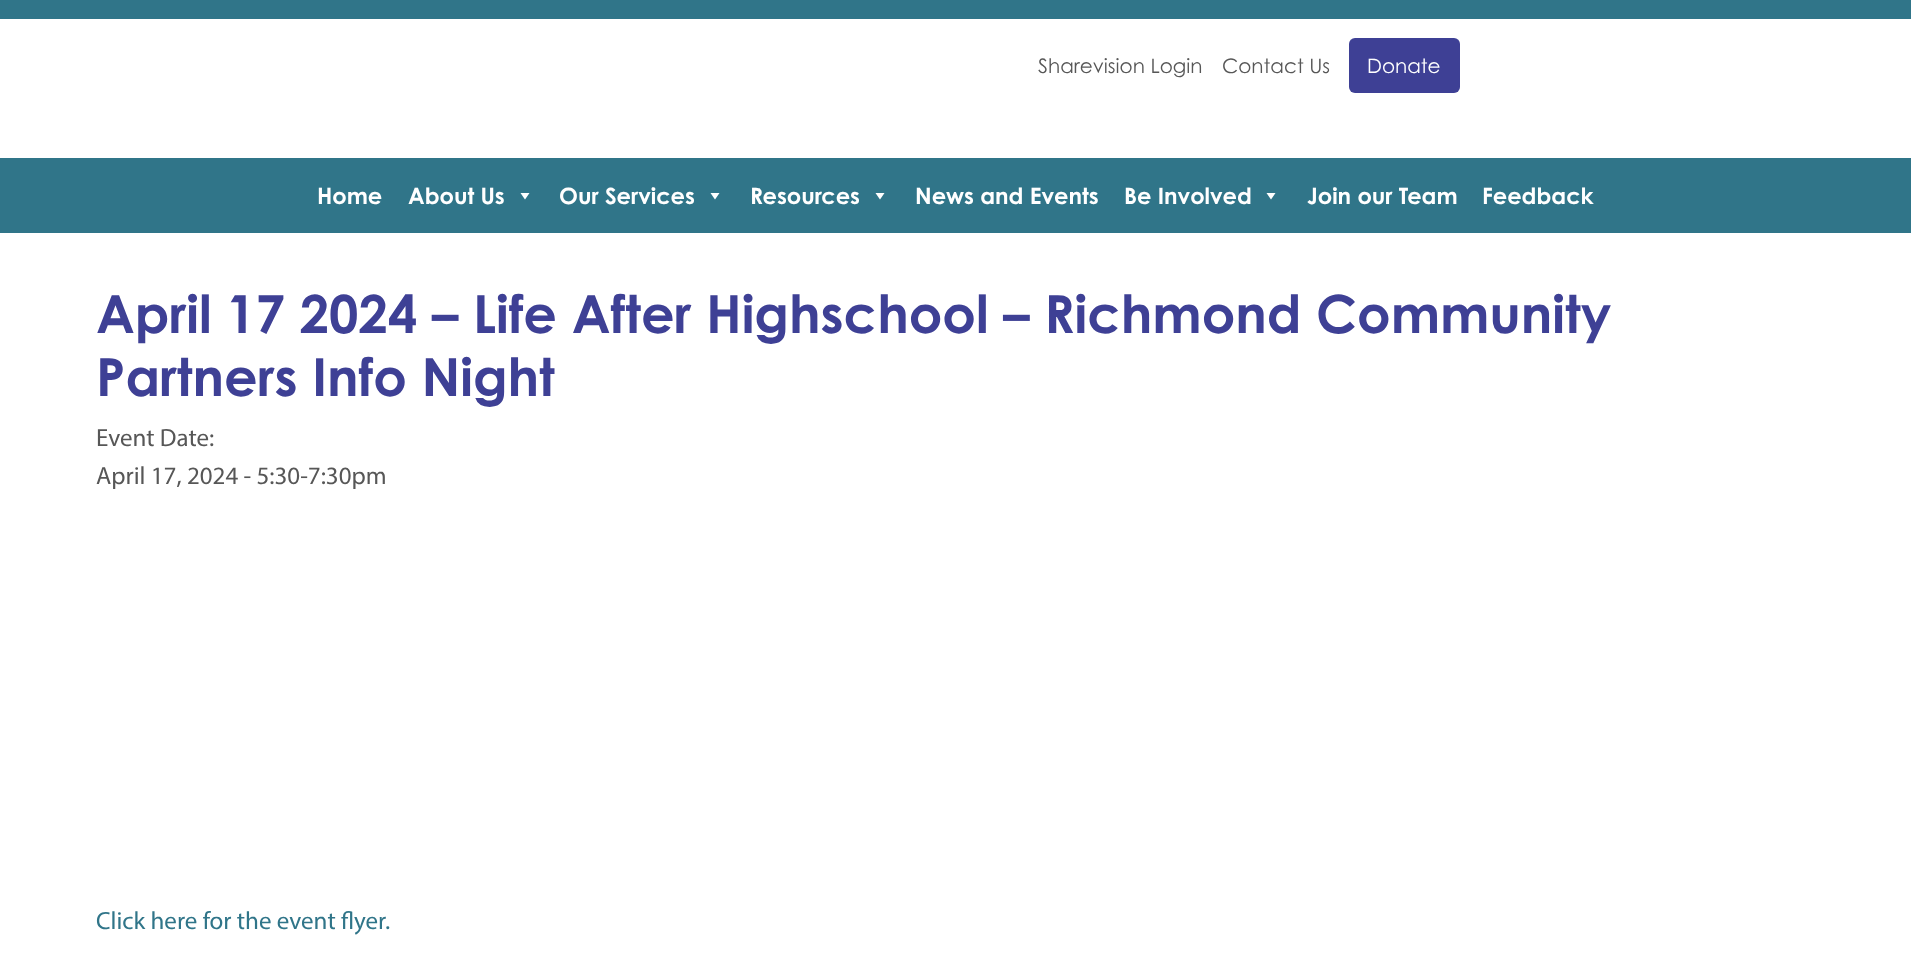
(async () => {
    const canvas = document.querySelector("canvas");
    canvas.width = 1911;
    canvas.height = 961;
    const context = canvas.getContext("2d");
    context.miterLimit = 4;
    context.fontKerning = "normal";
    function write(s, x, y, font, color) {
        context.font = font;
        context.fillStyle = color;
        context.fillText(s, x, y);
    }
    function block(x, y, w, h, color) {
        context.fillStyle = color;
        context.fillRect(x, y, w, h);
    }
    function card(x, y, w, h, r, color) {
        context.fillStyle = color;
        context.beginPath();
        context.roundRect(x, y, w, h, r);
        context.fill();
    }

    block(0, 0, 1911, 961, "rgb(255, 255, 255)");
    block(0, 0, 1911, 19, "rgb(48, 117, 137)");
    write("Sharevision Login", 1038, 73, "20px Century Gothic", "rgb(87, 87, 87)");
    write("Contact Us", 1222, 73, "20px Century Gothic", "rgb(87, 87, 87)");
    card(1349, 38, 111, 55, 6, "rgb(62, 64, 149)");
    write("Donate", 1367, 73, "20px Century Gothic", "rgb(255, 255, 255)");
    block(0, 158, 1911, 75, "rgb(48, 117, 137)");
    write("Home", 317, 204, "bold 22.5px Century Gothic", "rgb(255, 255, 255)");
    write("About Us", 408, 204, "bold 22.5px Century Gothic", "rgb(255, 255, 255)");
    context.beginPath();
    context.moveTo(529.5, 193);
    context.lineTo(525, 199.5);
    context.lineTo(520.5, 193);
    context.closePath();
    context.fill();
    write("Our Services", 559, 204, "bold 22.5px Century Gothic", "rgb(255, 255, 255)");
    context.beginPath();
    context.moveTo(719.5, 193);
    context.lineTo(715, 199.5);
    context.lineTo(710.5, 193);
    context.closePath();
    context.fill();
    write("Resources", 750, 204, "bold 22.5px Century Gothic", "rgb(255, 255, 255)");
    context.beginPath();
    context.moveTo(884.5, 193);
    context.lineTo(880, 199.5);
    context.lineTo(875.5, 193);
    context.closePath();
    context.fill();
    write("News and Events", 915, 204, "bold 22.5px Century Gothic", "rgb(255, 255, 255)");
    write("Be Involved", 1124, 204, "bold 22.5px Century Gothic", "rgb(255, 255, 255)");
    context.beginPath();
    context.moveTo(1275.5, 193);
    context.lineTo(1271, 199.5);
    context.lineTo(1266.5, 193);
    context.closePath();
    context.fill();
    write("Join our Team", 1307, 204, "bold 22.5px Century Gothic", "rgb(255, 255, 255)");
    write("Feedback", 1482, 204, "bold 22.5px Century Gothic", "rgb(255, 255, 255)");
    write("April 17 2024 – Life After Highschool – Richmond Community", 96, 333, "bold 52.5px Century Gothic", "rgb(62, 64, 149)");
    write("Partners Info Night", 96, 396, "bold 52.5px Century Gothic", "rgb(62, 64, 149)");
    write("Event Date:", 96, 446, "25px Myriad", "rgb(87, 87, 87)");
    write("April 17, 2024 - 5:30-7:30pm", 96, 484, "25px Myriad", "rgb(87, 87, 87)");
    write("Click here for the event flyer.", 96, 929, "25px Myriad", "rgb(48, 117, 137)");
})();
